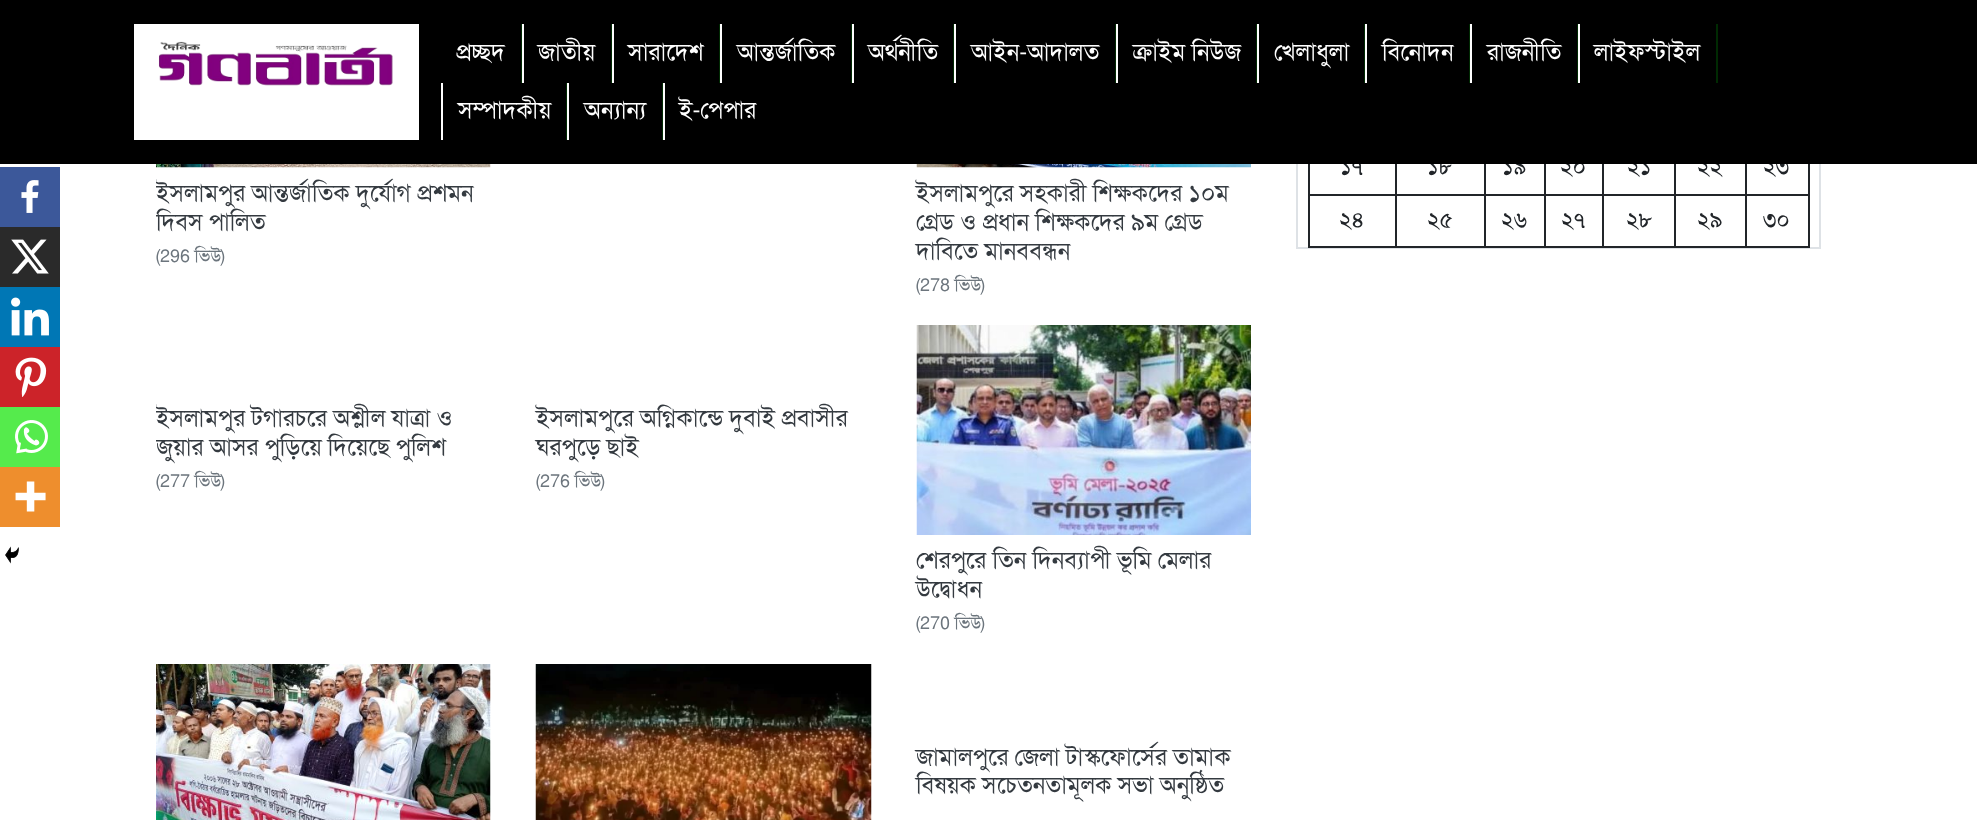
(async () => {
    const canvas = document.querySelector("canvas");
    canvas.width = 1977;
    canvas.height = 820;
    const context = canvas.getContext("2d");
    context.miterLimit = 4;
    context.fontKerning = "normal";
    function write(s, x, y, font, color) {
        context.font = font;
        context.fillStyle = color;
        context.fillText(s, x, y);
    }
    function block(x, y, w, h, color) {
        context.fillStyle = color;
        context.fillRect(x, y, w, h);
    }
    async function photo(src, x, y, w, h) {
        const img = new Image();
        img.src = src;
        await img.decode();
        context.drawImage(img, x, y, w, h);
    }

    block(0, 0, 1977, 820, "rgb(255, 255, 255)");
    context.strokeStyle = "rgb(222, 226, 230)";
    context.lineWidth = 2;
    context.strokeRect(1297, -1, 523, 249);
    write("১৭", 1340, 174, "22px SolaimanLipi", "rgb(33, 37, 41)");
    write("১৮", 1427, 174, "22px SolaimanLipi", "rgb(33, 37, 41)");
    write("১৯", 1502, 174, "22px SolaimanLipi", "rgb(33, 37, 41)");
    write("২০", 1560, 174, "22px SolaimanLipi", "rgb(33, 37, 41)");
    write("২১", 1627, 174, "22px SolaimanLipi", "rgb(33, 37, 41)");
    write("২২", 1697, 174, "22px SolaimanLipi", "rgb(33, 37, 41)");
    write("২৩", 1763, 174, "22px SolaimanLipi", "rgb(33, 37, 41)");
    block(0, 0, 1977, 164, "rgb(0, 0, 0)");
    block(134, 24, 285, 116, "rgb(255, 255, 255)");
    await photo("media/1.png", 158, 41, 235, 45);
    block(521, 24, 1, 59, "rgb(0, 42, 2)");
    write("প্রচ্ছদ", 456, 60, "24px SolaimanLipi", "rgb(255, 255, 255)");
    block(611, 24, 1, 59, "rgb(0, 42, 2)");
    block(522, 24, 2, 59, "rgb(255, 255, 255)");
    write("জাতীয়", 538, 60, "24px SolaimanLipi", "rgb(255, 255, 255)");
    block(719, 24, 1, 59, "rgb(0, 42, 2)");
    block(612, 24, 2, 59, "rgb(255, 255, 255)");
    write("সারাদেশ", 628, 60, "24px SolaimanLipi", "rgb(255, 255, 255)");
    block(851, 24, 1, 59, "rgb(0, 42, 2)");
    block(720, 24, 2, 59, "rgb(255, 255, 255)");
    write("আন্তর্জাতিক", 737, 60, "24px SolaimanLipi", "rgb(255, 255, 255)");
    block(953, 24, 1, 59, "rgb(0, 42, 2)");
    block(852, 24, 2, 59, "rgb(255, 255, 255)");
    write("অর্থনীতি", 868, 60, "24px SolaimanLipi", "rgb(255, 255, 255)");
    block(1115, 24, 1, 59, "rgb(0, 42, 2)");
    block(954, 24, 2, 59, "rgb(255, 255, 255)");
    write("আইন-আদালত", 971, 60, "24px SolaimanLipi", "rgb(255, 255, 255)");
    block(1256, 24, 1, 59, "rgb(0, 42, 2)");
    block(1116, 24, 2, 59, "rgb(255, 255, 255)");
    write("ক্রাইম নিউজ", 1133, 60, "24px SolaimanLipi", "rgb(255, 255, 255)");
    block(1364, 24, 1, 59, "rgb(0, 42, 2)");
    block(1257, 24, 2, 59, "rgb(255, 255, 255)");
    write("খেলাধুলা", 1274, 60, "24px SolaimanLipi", "rgb(255, 255, 255)");
    block(1469, 24, 1, 59, "rgb(0, 42, 2)");
    block(1365, 24, 2, 59, "rgb(255, 255, 255)");
    write("বিনোদন", 1382, 60, "24px SolaimanLipi", "rgb(255, 255, 255)");
    block(1577, 24, 1, 59, "rgb(0, 42, 2)");
    block(1470, 24, 2, 59, "rgb(255, 255, 255)");
    write("রাজনীতি", 1487, 60, "24px SolaimanLipi", "rgb(255, 255, 255)");
    block(1716, 24, 2, 59, "rgb(0, 42, 2)");
    block(1578, 24, 2, 59, "rgb(255, 255, 255)");
    write("লাইফস্টাইল", 1594, 60, "24px SolaimanLipi", "rgb(255, 255, 255)");
    block(566, 83, 1, 57, "rgb(0, 42, 2)");
    block(441, 83, 2, 57, "rgb(255, 255, 255)");
    write("সম্পাদকীয়", 458, 118, "24px SolaimanLipi", "rgb(255, 255, 255)");
    block(662, 83, 1, 57, "rgb(0, 42, 2)");
    block(567, 83, 2, 57, "rgb(255, 255, 255)");
    write("অন্যান্য", 584, 118, "24px SolaimanLipi", "rgb(255, 255, 255)");
    block(663, 83, 2, 57, "rgb(255, 255, 255)");
    write("ই-পেপার", 679, 118, "24px SolaimanLipi", "rgb(255, 255, 255)");
    block(0, 167, 60, 60, "rgb(60, 88, 154)");
    await photo("media/2.png", 21, 180, 18, 33);
    block(0, 227, 60, 60, "rgb(42, 42, 42)");
    await photo("media/3.png", 11, 239, 38, 35);
    block(0, 287, 60, 60, "rgb(0, 119, 181)");
    await photo("media/4.png", 11, 297, 38, 39);
    block(0, 347, 60, 60, "rgb(204, 35, 41)");
    await photo("media/5.png", 15, 357, 32, 40);
    block(0, 407, 60, 60, "rgb(85, 235, 76)");
    await photo("media/6.png", 15, 420, 33, 34);
    block(0, 467, 60, 60, "rgb(238, 142, 45)");
    await photo("media/7.png", 15, 481, 31, 31);
    await photo("media/8.png", 5, 546, 14, 18);
    await photo("media/9.png", 156, 164, 335, 4);
    context.save();
    context.beginPath();
    context.rect(156, 0, 357, 326);
    context.clip();
    write("ইসলামপুর আন্তর্জাতিক দুর্যোগ প্রশমন", 156, 201, "24px SolaimanLipi", "rgb(52, 58, 64)");
    write("দিবস পালিত", 156, 230, "24px SolaimanLipi", "rgb(52, 58, 64)");
    context.restore();
    write("(296 ভিউ)", 156, 262, "18px SolaimanLipi", "rgb(108, 117, 125)");
    await photo("media/10.png", 916, 164, 335, 4);
    write("ইসলামপুরে সহকারী শিক্ষকদের ১০ম", 916, 201, "24px SolaimanLipi", "rgb(52, 58, 64)");
    write("গ্রেড ও প্রধান শিক্ষকদের ৯ম গ্রেড", 916, 230, "24px SolaimanLipi", "rgb(52, 58, 64)");
    write("দাবিতে মানববন্ধন", 916, 259, "24px SolaimanLipi", "rgb(52, 58, 64)");
    write("(278 ভিউ)", 916, 291, "18px SolaimanLipi", "rgb(108, 117, 125)");
    context.save();
    context.beginPath();
    context.rect(156, 326, 357, 339);
    context.clip();
    write("ইসলামপুর টগারচরে অশ্লীল যাত্রা ও", 156, 426, "24px SolaimanLipi", "rgb(52, 58, 64)");
    write("জুয়ার আসর পুড়িয়ে দিয়েছে পুলিশ", 156, 455, "24px SolaimanLipi", "rgb(52, 58, 64)");
    context.restore();
    write("(277 ভিউ)", 156, 487, "18px SolaimanLipi", "rgb(108, 117, 125)");
    write("ইসলামপুরে অগ্নিকান্ডে দুবাই প্রবাসীর", 536, 426, "24px SolaimanLipi", "rgb(52, 58, 64)");
    write("ঘরপুড়ে ছাই", 536, 455, "24px SolaimanLipi", "rgb(52, 58, 64)");
    write("(276 ভিউ)", 536, 487, "18px SolaimanLipi", "rgb(108, 117, 125)");
    await photo("media/11.png", 916, 325, 335, 210);
    write("শেরপুরে তিন দিনব্যাপী ভূমি মেলার", 916, 568, "24px SolaimanLipi", "rgb(52, 58, 64)");
    write("উদ্বোধন", 916, 597, "24px SolaimanLipi", "rgb(52, 58, 64)");
    write("(270 ভিউ)", 916, 629, "18px SolaimanLipi", "rgb(108, 117, 125)");
    await photo("media/12.png", 156, 664, 335, 156);
    await photo("media/13.png", 535, 664, 337, 156);
    write("জামালপুরে জেলা টাস্কফোর্সের তামাক", 916, 765, "24px SolaimanLipi", "rgb(52, 58, 64)");
    write("বিষয়ক সচেতনতামূলক সভা অনুষ্ঠিত", 916, 793, "24px SolaimanLipi", "rgb(52, 58, 64)");
    block(1745, 194, 64, 2, "rgb(33, 37, 41)");
    block(1808, 164, 2, 84, "rgb(33, 37, 41)");
    block(1745, 246, 64, 2, "rgb(33, 37, 41)");
    block(1745, 194, 2, 54, "rgb(33, 37, 41)");
    block(1674, 194, 72, 2, "rgb(33, 37, 41)");
    block(1674, 246, 72, 2, "rgb(33, 37, 41)");
    block(1674, 194, 2, 54, "rgb(33, 37, 41)");
    block(1602, 194, 74, 2, "rgb(33, 37, 41)");
    block(1602, 246, 74, 2, "rgb(33, 37, 41)");
    block(1602, 194, 2, 54, "rgb(33, 37, 41)");
    block(1544, 194, 60, 2, "rgb(33, 37, 41)");
    block(1544, 246, 60, 2, "rgb(33, 37, 41)");
    block(1544, 194, 2, 54, "rgb(33, 37, 41)");
    block(1484, 194, 61, 2, "rgb(33, 37, 41)");
    block(1484, 246, 61, 2, "rgb(33, 37, 41)");
    block(1484, 194, 2, 54, "rgb(33, 37, 41)");
    block(1395, 194, 90, 2, "rgb(33, 37, 41)");
    block(1395, 246, 90, 2, "rgb(33, 37, 41)");
    block(1395, 194, 2, 54, "rgb(33, 37, 41)");
    block(1308, 194, 89, 2, "rgb(33, 37, 41)");
    block(1395, 164, 2, 31, "rgb(33, 37, 41)");
    block(1484, 164, 2, 31, "rgb(33, 37, 41)");
    block(1544, 164, 2, 31, "rgb(33, 37, 41)");
    block(1602, 164, 2, 31, "rgb(33, 37, 41)");
    block(1674, 164, 2, 31, "rgb(33, 37, 41)");
    block(1745, 164, 2, 31, "rgb(33, 37, 41)");
    block(1308, 246, 89, 2, "rgb(33, 37, 41)");
    block(1308, 164, 2, 84, "rgb(33, 37, 41)");
    write("২৪", 1339, 227, "22px SolaimanLipi", "rgb(33, 37, 41)");
    write("২৫", 1427, 227, "22px SolaimanLipi", "rgb(33, 37, 41)");
    write("২৬", 1501, 227, "22px SolaimanLipi", "rgb(33, 37, 41)");
    write("২৭", 1561, 227, "22px SolaimanLipi", "rgb(33, 37, 41)");
    write("২৮", 1626, 227, "22px SolaimanLipi", "rgb(33, 37, 41)");
    write("২৯", 1697, 227, "22px SolaimanLipi", "rgb(33, 37, 41)");
    write("৩০", 1763, 227, "22px SolaimanLipi", "rgb(33, 37, 41)");
})();
